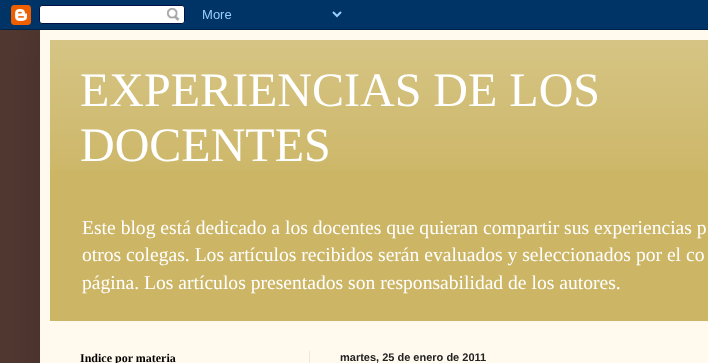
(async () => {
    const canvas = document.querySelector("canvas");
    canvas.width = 708;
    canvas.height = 363;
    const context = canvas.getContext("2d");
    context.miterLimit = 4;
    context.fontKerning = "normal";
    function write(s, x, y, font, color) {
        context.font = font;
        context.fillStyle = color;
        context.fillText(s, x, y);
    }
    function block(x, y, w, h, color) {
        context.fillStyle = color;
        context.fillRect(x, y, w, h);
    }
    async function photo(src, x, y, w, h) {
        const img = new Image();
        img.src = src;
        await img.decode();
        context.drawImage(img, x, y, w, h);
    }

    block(0, 0, 708, 363, "rgb(81, 56, 49)");
    context.fillStyle = "rgba(0, 0, 0, 0.15)";
    context.filter = "blur(20px)";
    context.beginPath();
    context.rect(40, 30, 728, 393);
    context.fill();
    context.filter = "none";
    await photo("media/1.png", 0, 0, 708, 30);
    block(40, 30, 668, 333, "rgb(255, 249, 238)");
    block(50, 40, 658, 281, "rgb(204, 182, 102)");
    await photo("media/2.png", 50, 40, 658, 130);
    write("EXPERIENCIAS DE LOS", 80, 106, "48px Liberation Serif", "rgb(255, 255, 255)");
    write("DOCENTES", 80, 161, "48px Liberation Serif", "rgb(255, 255, 255)");
    write("Este blog está dedicado a los docentes que quieran compartir sus experiencias p", 82, 234, "19.6px Liberation Serif", "rgb(255, 255, 255)");
    write("otros colegas. Los artículos recibidos serán evaluados y seleccionados por el co", 82, 261, "19.6px Liberation Serif", "rgb(255, 255, 255)");
    write("página. Los artículos presentados son responsabilidad de los autores.", 82, 289, "19.6px Liberation Serif", "rgb(255, 255, 255)");
    block(309, 351, 1, 12, "rgb(238, 229, 221)");
    write("Indice por materia", 80, 362, "bold 12px Liberation Serif", "rgb(0, 0, 0)");
    write("martes, 25 de enero de 2011", 340, 361, "bold 11px Liberation Sans", "rgb(34, 34, 34)");
})();
